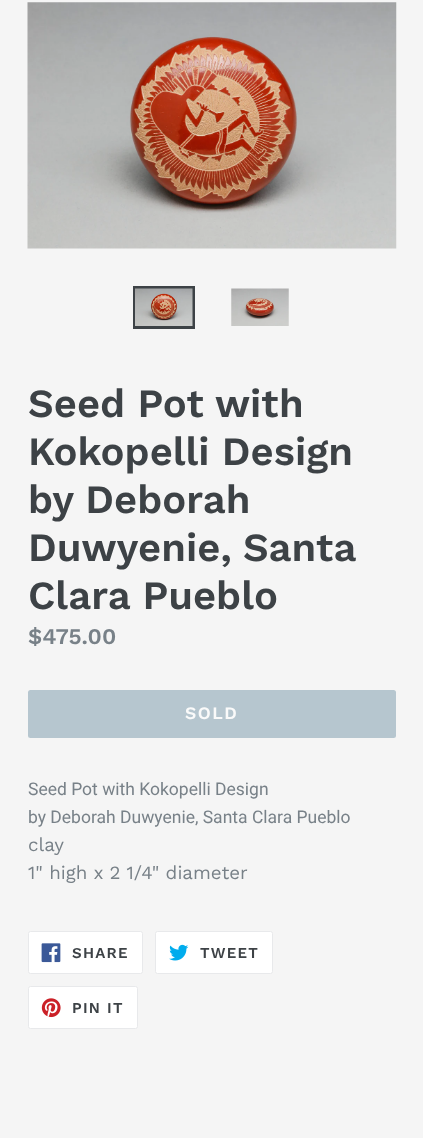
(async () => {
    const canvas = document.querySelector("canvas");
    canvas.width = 423;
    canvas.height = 1138;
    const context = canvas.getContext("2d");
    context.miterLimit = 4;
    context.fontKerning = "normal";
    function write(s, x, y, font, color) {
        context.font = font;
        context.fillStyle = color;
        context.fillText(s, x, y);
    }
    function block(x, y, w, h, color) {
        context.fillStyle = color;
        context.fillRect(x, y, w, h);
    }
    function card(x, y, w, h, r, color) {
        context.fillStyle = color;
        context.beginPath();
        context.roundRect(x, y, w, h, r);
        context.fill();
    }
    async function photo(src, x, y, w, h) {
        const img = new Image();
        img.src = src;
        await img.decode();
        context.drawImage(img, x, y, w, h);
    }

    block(0, 0, 423, 1138, "rgb(245, 245, 245)");
    await photo("media/1.png", 27, 2, 370, 247);
    context.strokeStyle = "rgb(61, 66, 70)";
    context.lineWidth = 3;
    context.strokeRect(134.5, 287.5, 59, 40);
    await photo("media/2.png", 135, 288, 58, 38);
    await photo("media/3.png", 231, 288, 58, 38);
    write("Seed Pot with", 28, 417, "600 40px Work Sans", "rgb(61, 66, 70)");
    write("Kokopelli Design", 28, 465, "600 40px Work Sans", "rgb(61, 66, 70)");
    write("by Deborah", 28, 513, "600 40px Work Sans", "rgb(61, 66, 70)");
    context.wordSpacing = "-1px";
    write("Duwyenie, Santa", 28, 561, "600 40px Work Sans", "rgb(61, 66, 70)");
    context.wordSpacing = "0px";
    write("Clara Pueblo", 28, 609, "600 40px Work Sans", "rgb(61, 66, 70)");
    write("$475.00", 28, 644, "600 22.5px Work Sans", "rgb(120, 129, 136)");
    card(28, 690, 368, 48, 2.5, "rgb(182, 198, 207)");
    context.letterSpacing = "1.5px";
    write("SOLD", 185, 719, "600 17.5px Work Sans", "rgb(250, 250, 250)");
    context.letterSpacing = "0px";
    write("Seed Pot with Kokopelli Design", 28, 795, "17.5px Roboto", "rgb(120, 129, 136)");
    write("by Deborah Duwyenie, Santa Clara Pueblo", 28, 823, "17.5px Roboto", "rgb(120, 129, 136)");
    write("clay", 28, 851, "18.75px Work Sans", "rgb(120, 129, 136)");
    write("1\" high x 2 1/4\" diameter", 28, 879, "18.75px Work Sans", "rgb(120, 129, 136)");
    context.fillStyle = "rgb(255, 255, 255)";
    context.beginPath();
    context.roundRect(28.5, 931.5, 114, 42, 2);
    context.fill();
    context.strokeStyle = "rgb(232, 233, 235)";
    context.lineWidth = 1;
    context.stroke();
    await photo("media/4.png", 41, 943, 20, 20);
    context.letterSpacing = "1.25px";
    write("SHARE", 72, 958, "600 15px Work Sans", "rgb(61, 66, 70)");
    context.fillStyle = "rgb(255, 255, 255)";
    context.beginPath();
    context.roundRect(155.5, 931.5, 117, 42, 2);
    context.fill();
    context.stroke();
    await photo("media/5.png", 169, 944, 20, 17);
    write("TWEET", 200, 958, "600 15px Work Sans", "rgb(61, 66, 70)");
    context.fillStyle = "rgb(255, 255, 255)";
    context.beginPath();
    context.roundRect(28.5, 986.5, 109, 42, 2);
    context.fill();
    context.stroke();
    await photo("media/6.png", 41, 998, 20, 20);
    write("PIN IT", 72, 1013, "600 15px Work Sans", "rgb(61, 66, 70)");
})();
